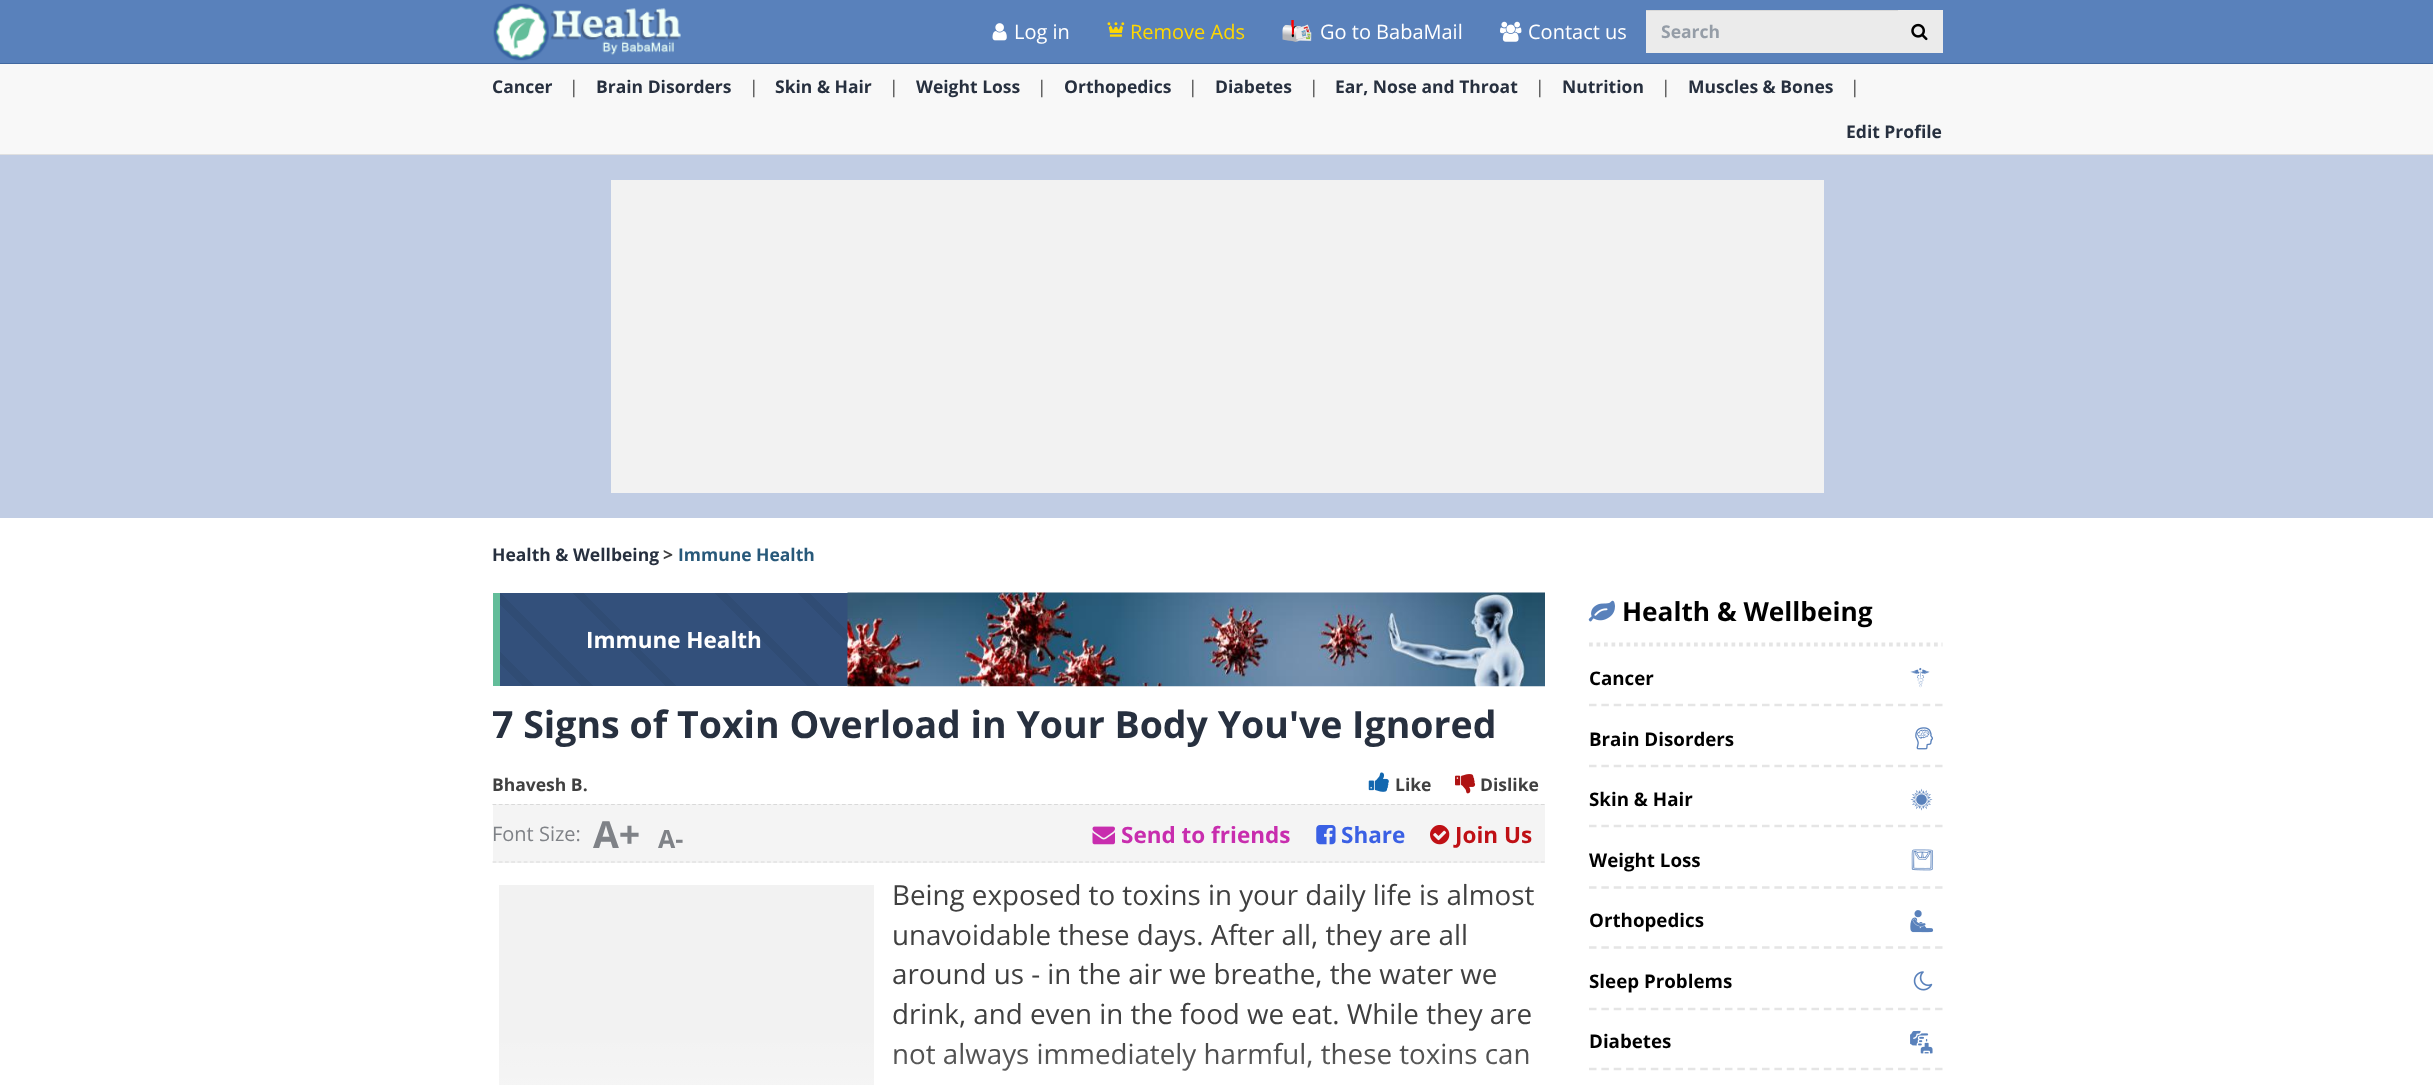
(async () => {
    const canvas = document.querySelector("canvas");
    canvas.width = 2433;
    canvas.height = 1085;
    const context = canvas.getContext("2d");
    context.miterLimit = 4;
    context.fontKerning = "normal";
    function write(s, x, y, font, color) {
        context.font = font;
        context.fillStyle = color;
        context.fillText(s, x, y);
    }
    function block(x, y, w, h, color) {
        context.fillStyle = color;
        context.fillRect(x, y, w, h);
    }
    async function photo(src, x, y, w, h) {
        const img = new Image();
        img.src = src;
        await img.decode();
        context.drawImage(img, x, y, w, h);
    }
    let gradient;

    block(0, 0, 2433, 1085, "rgb(255, 255, 255)");
    block(0, 0, 2433, 63, "rgb(89, 129, 187)");
    block(0, 63, 2433, 1, "rgb(65, 104, 160)");
    await photo("media/1.png", 493, 3, 188, 58);
    await photo("media/2.png", 992, 23, 15, 18);
    write("Log in", 1014, 39, "20px Open Sans", "rgb(255, 255, 255)");
    await photo("media/3.png", 1107, 22, 18, 15);
    write("Remove Ads", 1130, 39, "20px Open Sans", "rgb(255, 215, 0)");
    await photo("media/4.png", 1282, 20, 30, 22);
    write("Go to BabaMail", 1320, 39, "20px Open Sans", "rgb(255, 255, 255)");
    await photo("media/5.png", 1500, 21, 22, 21);
    write("Contact us", 1528, 39, "20px Open Sans", "rgb(255, 255, 255)");
    block(1646, 11, 252, 42, "rgb(235, 235, 235)");
    block(1646, 10, 252, 1, "rgb(217, 217, 217)");
    write("Search", 1661, 38, "bold 17.5px Open Sans", "rgb(149, 157, 167)");
    block(1898, 10, 45, 43, "rgb(235, 235, 235)");
    await photo("media/6.png", 1911, 23, 17, 18);
    block(0, 64, 2433, 90, "rgb(248, 248, 248)");
    block(0, 154, 2433, 1, "rgb(224, 224, 224)");
    write("Cancer", 492, 93, "bold 17.5px Open Sans", "rgb(39, 48, 63)");
    write("|", 569, 93, "17.5px Open Sans", "rgb(64, 64, 64)");
    write("Brain Disorders", 596, 93, "bold 17.5px Open Sans", "rgb(39, 48, 63)");
    write("|", 749, 93, "17.5px Open Sans", "rgb(64, 64, 64)");
    write("Skin & Hair", 775, 93, "bold 17.5px Open Sans", "rgb(39, 48, 63)");
    write("|", 889, 93, "17.5px Open Sans", "rgb(64, 64, 64)");
    write("Weight Loss", 916, 93, "bold 17.5px Open Sans", "rgb(39, 48, 63)");
    write("|", 1037, 93, "17.5px Open Sans", "rgb(64, 64, 64)");
    write("Orthopedics", 1064, 93, "bold 17.5px Open Sans", "rgb(39, 48, 63)");
    write("|", 1188, 93, "17.5px Open Sans", "rgb(64, 64, 64)");
    write("Diabetes", 1215, 93, "bold 17.5px Open Sans", "rgb(39, 48, 63)");
    write("|", 1309, 93, "17.5px Open Sans", "rgb(64, 64, 64)");
    write("Ear, Nose and Throat", 1335, 93, "bold 17.5px Open Sans", "rgb(39, 48, 63)");
    write("|", 1535, 93, "17.5px Open Sans", "rgb(64, 64, 64)");
    write("Nutrition", 1562, 93, "bold 17.5px Open Sans", "rgb(39, 48, 63)");
    write("|", 1661, 93, "17.5px Open Sans", "rgb(64, 64, 64)");
    write("Muscles & Bones", 1688, 93, "bold 17.5px Open Sans", "rgb(39, 48, 63)");
    write("|", 1850, 93, "17.5px Open Sans", "rgb(64, 64, 64)");
    write("Edit Profile", 1846, 138, "bold 17.5px Open Sans", "rgb(39, 48, 63)");
    block(0, 155, 2433, 363, "rgb(193, 205, 228)");
    block(611, 180, 1213, 313, "rgb(242, 242, 242)");
    write("Health & Wellbeing", 492, 561, "bold 17.5px Open Sans", "rgb(39, 48, 63)");
    write(">", 663, 561, "bold 17.5px Open Sans", "rgb(64, 64, 64)");
    write("Immune Health", 678, 561, "bold 17.5px Open Sans", "rgb(40, 89, 122)");
    gradient = context.createLinearGradient(725, 936, 1319, 342);
    gradient.addColorStop(0, "rgb(48, 76, 116)");
    gradient.addColorStop(0, "rgb(51, 80, 123)");
    gradient.addColorStop(0.02, "rgb(51, 80, 123)");
    gradient.addColorStop(0.02, "rgb(48, 76, 116)");
    gradient.addColorStop(0.02, "rgb(48, 76, 116)");
    gradient.addColorStop(0.02, "rgb(51, 80, 123)");
    gradient.addColorStop(0.02, "rgb(48, 76, 116)");
    gradient.addColorStop(0.02, "rgb(51, 80, 123)");
    gradient.addColorStop(0.04, "rgb(51, 80, 123)");
    gradient.addColorStop(0.04, "rgb(48, 76, 116)");
    gradient.addColorStop(0.05, "rgb(48, 76, 116)");
    gradient.addColorStop(0.05, "rgb(51, 80, 123)");
    gradient.addColorStop(0.05, "rgb(48, 76, 116)");
    gradient.addColorStop(0.05, "rgb(51, 80, 123)");
    gradient.addColorStop(0.07, "rgb(51, 80, 123)");
    gradient.addColorStop(0.07, "rgb(48, 76, 116)");
    gradient.addColorStop(0.07, "rgb(48, 76, 116)");
    gradient.addColorStop(0.07, "rgb(51, 80, 123)");
    gradient.addColorStop(0.07, "rgb(48, 76, 116)");
    gradient.addColorStop(0.07, "rgb(51, 80, 123)");
    gradient.addColorStop(0.09, "rgb(51, 80, 123)");
    gradient.addColorStop(0.09, "rgb(48, 76, 116)");
    gradient.addColorStop(0.1, "rgb(48, 76, 116)");
    gradient.addColorStop(0.1, "rgb(51, 80, 123)");
    gradient.addColorStop(0.1, "rgb(48, 76, 116)");
    gradient.addColorStop(0.1, "rgb(51, 80, 123)");
    gradient.addColorStop(0.12, "rgb(51, 80, 123)");
    gradient.addColorStop(0.12, "rgb(48, 76, 116)");
    gradient.addColorStop(0.12, "rgb(48, 76, 116)");
    gradient.addColorStop(0.12, "rgb(51, 80, 123)");
    gradient.addColorStop(0.12, "rgb(48, 76, 116)");
    gradient.addColorStop(0.12, "rgb(51, 80, 123)");
    gradient.addColorStop(0.14, "rgb(51, 80, 123)");
    gradient.addColorStop(0.14, "rgb(48, 76, 116)");
    gradient.addColorStop(0.14, "rgb(48, 76, 116)");
    gradient.addColorStop(0.14, "rgb(51, 80, 123)");
    gradient.addColorStop(0.14, "rgb(48, 76, 116)");
    gradient.addColorStop(0.14, "rgb(51, 80, 123)");
    gradient.addColorStop(0.16, "rgb(51, 80, 123)");
    gradient.addColorStop(0.16, "rgb(48, 76, 116)");
    gradient.addColorStop(0.17, "rgb(48, 76, 116)");
    gradient.addColorStop(0.17, "rgb(51, 80, 123)");
    gradient.addColorStop(0.17, "rgb(48, 76, 116)");
    gradient.addColorStop(0.17, "rgb(51, 80, 123)");
    gradient.addColorStop(0.19, "rgb(51, 80, 123)");
    gradient.addColorStop(0.19, "rgb(48, 76, 116)");
    gradient.addColorStop(0.19, "rgb(48, 76, 116)");
    gradient.addColorStop(0.19, "rgb(51, 80, 123)");
    gradient.addColorStop(0.19, "rgb(48, 76, 116)");
    gradient.addColorStop(0.19, "rgb(51, 80, 123)");
    gradient.addColorStop(0.21, "rgb(51, 80, 123)");
    gradient.addColorStop(0.21, "rgb(48, 76, 116)");
    gradient.addColorStop(0.21, "rgb(48, 76, 116)");
    gradient.addColorStop(0.21, "rgb(51, 80, 123)");
    gradient.addColorStop(0.21, "rgb(48, 76, 116)");
    gradient.addColorStop(0.21, "rgb(51, 80, 123)");
    gradient.addColorStop(0.24, "rgb(51, 80, 123)");
    gradient.addColorStop(0.24, "rgb(48, 76, 116)");
    gradient.addColorStop(0.24, "rgb(48, 76, 116)");
    gradient.addColorStop(0.24, "rgb(51, 80, 123)");
    gradient.addColorStop(0.24, "rgb(48, 76, 116)");
    gradient.addColorStop(0.24, "rgb(51, 80, 123)");
    gradient.addColorStop(0.26, "rgb(51, 80, 123)");
    gradient.addColorStop(0.26, "rgb(48, 76, 116)");
    gradient.addColorStop(0.26, "rgb(48, 76, 116)");
    gradient.addColorStop(0.26, "rgb(51, 80, 123)");
    gradient.addColorStop(0.26, "rgb(48, 76, 116)");
    gradient.addColorStop(0.26, "rgb(51, 80, 123)");
    gradient.addColorStop(0.28, "rgb(51, 80, 123)");
    gradient.addColorStop(0.28, "rgb(48, 76, 116)");
    gradient.addColorStop(0.29, "rgb(48, 76, 116)");
    gradient.addColorStop(0.29, "rgb(51, 80, 123)");
    gradient.addColorStop(0.29, "rgb(48, 76, 116)");
    gradient.addColorStop(0.29, "rgb(51, 80, 123)");
    gradient.addColorStop(0.31, "rgb(51, 80, 123)");
    gradient.addColorStop(0.31, "rgb(48, 76, 116)");
    gradient.addColorStop(0.31, "rgb(48, 76, 116)");
    gradient.addColorStop(0.31, "rgb(51, 80, 123)");
    gradient.addColorStop(0.31, "rgb(48, 76, 116)");
    gradient.addColorStop(0.31, "rgb(51, 80, 123)");
    gradient.addColorStop(0.33, "rgb(51, 80, 123)");
    gradient.addColorStop(0.33, "rgb(48, 76, 116)");
    gradient.addColorStop(0.33, "rgb(48, 76, 116)");
    gradient.addColorStop(0.33, "rgb(51, 80, 123)");
    gradient.addColorStop(0.33, "rgb(48, 76, 116)");
    gradient.addColorStop(0.33, "rgb(51, 80, 123)");
    gradient.addColorStop(0.35, "rgb(51, 80, 123)");
    gradient.addColorStop(0.35, "rgb(48, 76, 116)");
    gradient.addColorStop(0.36, "rgb(48, 76, 116)");
    gradient.addColorStop(0.36, "rgb(51, 80, 123)");
    gradient.addColorStop(0.36, "rgb(48, 76, 116)");
    gradient.addColorStop(0.36, "rgb(51, 80, 123)");
    gradient.addColorStop(0.38, "rgb(51, 80, 123)");
    gradient.addColorStop(0.38, "rgb(48, 76, 116)");
    gradient.addColorStop(0.38, "rgb(48, 76, 116)");
    gradient.addColorStop(0.38, "rgb(51, 80, 123)");
    gradient.addColorStop(0.38, "rgb(48, 76, 116)");
    gradient.addColorStop(0.38, "rgb(51, 80, 123)");
    gradient.addColorStop(0.4, "rgb(51, 80, 123)");
    gradient.addColorStop(0.4, "rgb(48, 76, 116)");
    gradient.addColorStop(0.4, "rgb(48, 76, 116)");
    gradient.addColorStop(0.4, "rgb(51, 80, 123)");
    gradient.addColorStop(0.4, "rgb(48, 76, 116)");
    gradient.addColorStop(0.4, "rgb(51, 80, 123)");
    gradient.addColorStop(0.43, "rgb(51, 80, 123)");
    gradient.addColorStop(0.43, "rgb(48, 76, 116)");
    gradient.addColorStop(0.43, "rgb(48, 76, 116)");
    gradient.addColorStop(0.43, "rgb(51, 80, 123)");
    gradient.addColorStop(0.43, "rgb(48, 76, 116)");
    gradient.addColorStop(0.43, "rgb(51, 80, 123)");
    gradient.addColorStop(0.45, "rgb(51, 80, 123)");
    gradient.addColorStop(0.45, "rgb(48, 76, 116)");
    gradient.addColorStop(0.45, "rgb(48, 76, 116)");
    gradient.addColorStop(0.45, "rgb(51, 80, 123)");
    gradient.addColorStop(0.45, "rgb(48, 76, 116)");
    gradient.addColorStop(0.45, "rgb(51, 80, 123)");
    gradient.addColorStop(0.47, "rgb(51, 80, 123)");
    gradient.addColorStop(0.47, "rgb(48, 76, 116)");
    gradient.addColorStop(0.48, "rgb(48, 76, 116)");
    gradient.addColorStop(0.48, "rgb(51, 80, 123)");
    gradient.addColorStop(0.48, "rgb(48, 76, 116)");
    gradient.addColorStop(0.48, "rgb(51, 80, 123)");
    gradient.addColorStop(0.5, "rgb(51, 80, 123)");
    gradient.addColorStop(0.5, "rgb(48, 76, 116)");
    gradient.addColorStop(0.5, "rgb(48, 76, 116)");
    gradient.addColorStop(0.5, "rgb(51, 80, 123)");
    gradient.addColorStop(0.5, "rgb(48, 76, 116)");
    gradient.addColorStop(0.5, "rgb(51, 80, 123)");
    gradient.addColorStop(0.52, "rgb(51, 80, 123)");
    gradient.addColorStop(0.52, "rgb(48, 76, 116)");
    gradient.addColorStop(0.52, "rgb(48, 76, 116)");
    gradient.addColorStop(0.52, "rgb(51, 80, 123)");
    gradient.addColorStop(0.52, "rgb(48, 76, 116)");
    gradient.addColorStop(0.52, "rgb(51, 80, 123)");
    gradient.addColorStop(0.54, "rgb(51, 80, 123)");
    gradient.addColorStop(0.54, "rgb(48, 76, 116)");
    gradient.addColorStop(0.55, "rgb(48, 76, 116)");
    gradient.addColorStop(0.55, "rgb(51, 80, 123)");
    gradient.addColorStop(0.55, "rgb(48, 76, 116)");
    gradient.addColorStop(0.55, "rgb(51, 80, 123)");
    gradient.addColorStop(0.57, "rgb(51, 80, 123)");
    gradient.addColorStop(0.57, "rgb(48, 76, 116)");
    gradient.addColorStop(0.57, "rgb(48, 76, 116)");
    gradient.addColorStop(0.57, "rgb(51, 80, 123)");
    gradient.addColorStop(0.57, "rgb(48, 76, 116)");
    gradient.addColorStop(0.57, "rgb(51, 80, 123)");
    gradient.addColorStop(0.59, "rgb(51, 80, 123)");
    gradient.addColorStop(0.59, "rgb(48, 76, 116)");
    gradient.addColorStop(0.6, "rgb(48, 76, 116)");
    gradient.addColorStop(0.6, "rgb(51, 80, 123)");
    gradient.addColorStop(0.6, "rgb(48, 76, 116)");
    gradient.addColorStop(0.6, "rgb(51, 80, 123)");
    gradient.addColorStop(0.62, "rgb(51, 80, 123)");
    gradient.addColorStop(0.62, "rgb(48, 76, 116)");
    gradient.addColorStop(0.62, "rgb(48, 76, 116)");
    gradient.addColorStop(0.62, "rgb(51, 80, 123)");
    gradient.addColorStop(0.62, "rgb(48, 76, 116)");
    gradient.addColorStop(0.62, "rgb(51, 80, 123)");
    gradient.addColorStop(0.64, "rgb(51, 80, 123)");
    gradient.addColorStop(0.64, "rgb(48, 76, 116)");
    gradient.addColorStop(0.64, "rgb(48, 76, 116)");
    gradient.addColorStop(0.64, "rgb(51, 80, 123)");
    gradient.addColorStop(0.64, "rgb(48, 76, 116)");
    gradient.addColorStop(0.64, "rgb(51, 80, 123)");
    gradient.addColorStop(0.66, "rgb(51, 80, 123)");
    gradient.addColorStop(0.66, "rgb(48, 76, 116)");
    gradient.addColorStop(0.67, "rgb(48, 76, 116)");
    gradient.addColorStop(0.67, "rgb(51, 80, 123)");
    gradient.addColorStop(0.67, "rgb(48, 76, 116)");
    gradient.addColorStop(0.67, "rgb(51, 80, 123)");
    gradient.addColorStop(0.69, "rgb(51, 80, 123)");
    gradient.addColorStop(0.69, "rgb(48, 76, 116)");
    gradient.addColorStop(0.69, "rgb(48, 76, 116)");
    gradient.addColorStop(0.69, "rgb(51, 80, 123)");
    gradient.addColorStop(0.69, "rgb(48, 76, 116)");
    gradient.addColorStop(0.69, "rgb(51, 80, 123)");
    gradient.addColorStop(0.71, "rgb(51, 80, 123)");
    gradient.addColorStop(0.71, "rgb(48, 76, 116)");
    gradient.addColorStop(0.71, "rgb(48, 76, 116)");
    gradient.addColorStop(0.71, "rgb(51, 80, 123)");
    gradient.addColorStop(0.71, "rgb(48, 76, 116)");
    gradient.addColorStop(0.71, "rgb(51, 80, 123)");
    gradient.addColorStop(0.74, "rgb(51, 80, 123)");
    gradient.addColorStop(0.74, "rgb(48, 76, 116)");
    gradient.addColorStop(0.74, "rgb(48, 76, 116)");
    gradient.addColorStop(0.74, "rgb(51, 80, 123)");
    gradient.addColorStop(0.74, "rgb(48, 76, 116)");
    gradient.addColorStop(0.74, "rgb(51, 80, 123)");
    gradient.addColorStop(0.76, "rgb(51, 80, 123)");
    gradient.addColorStop(0.76, "rgb(48, 76, 116)");
    gradient.addColorStop(0.76, "rgb(48, 76, 116)");
    gradient.addColorStop(0.76, "rgb(51, 80, 123)");
    gradient.addColorStop(0.76, "rgb(48, 76, 116)");
    gradient.addColorStop(0.76, "rgb(51, 80, 123)");
    gradient.addColorStop(0.78, "rgb(51, 80, 123)");
    gradient.addColorStop(0.78, "rgb(48, 76, 116)");
    gradient.addColorStop(0.79, "rgb(48, 76, 116)");
    gradient.addColorStop(0.79, "rgb(51, 80, 123)");
    gradient.addColorStop(0.79, "rgb(48, 76, 116)");
    gradient.addColorStop(0.79, "rgb(51, 80, 123)");
    gradient.addColorStop(0.81, "rgb(51, 80, 123)");
    gradient.addColorStop(0.81, "rgb(48, 76, 116)");
    gradient.addColorStop(0.81, "rgb(48, 76, 116)");
    gradient.addColorStop(0.81, "rgb(51, 80, 123)");
    gradient.addColorStop(0.81, "rgb(48, 76, 116)");
    gradient.addColorStop(0.81, "rgb(51, 80, 123)");
    gradient.addColorStop(0.83, "rgb(51, 80, 123)");
    gradient.addColorStop(0.83, "rgb(48, 76, 116)");
    gradient.addColorStop(0.83, "rgb(48, 76, 116)");
    gradient.addColorStop(0.83, "rgb(51, 80, 123)");
    gradient.addColorStop(0.83, "rgb(48, 76, 116)");
    gradient.addColorStop(0.83, "rgb(51, 80, 123)");
    gradient.addColorStop(0.85, "rgb(51, 80, 123)");
    gradient.addColorStop(0.85, "rgb(48, 76, 116)");
    gradient.addColorStop(0.86, "rgb(48, 76, 116)");
    gradient.addColorStop(0.86, "rgb(51, 80, 123)");
    gradient.addColorStop(0.86, "rgb(48, 76, 116)");
    gradient.addColorStop(0.86, "rgb(51, 80, 123)");
    gradient.addColorStop(0.88, "rgb(51, 80, 123)");
    gradient.addColorStop(0.88, "rgb(48, 76, 116)");
    gradient.addColorStop(0.88, "rgb(48, 76, 116)");
    gradient.addColorStop(0.88, "rgb(51, 80, 123)");
    gradient.addColorStop(0.88, "rgb(48, 76, 116)");
    gradient.addColorStop(0.88, "rgb(51, 80, 123)");
    gradient.addColorStop(0.9, "rgb(51, 80, 123)");
    gradient.addColorStop(0.9, "rgb(48, 76, 116)");
    gradient.addColorStop(0.9, "rgb(48, 76, 116)");
    gradient.addColorStop(0.9, "rgb(51, 80, 123)");
    gradient.addColorStop(0.9, "rgb(48, 76, 116)");
    gradient.addColorStop(0.9, "rgb(51, 80, 123)");
    gradient.addColorStop(0.93, "rgb(51, 80, 123)");
    gradient.addColorStop(0.93, "rgb(48, 76, 116)");
    gradient.addColorStop(0.93, "rgb(48, 76, 116)");
    gradient.addColorStop(0.93, "rgb(51, 80, 123)");
    gradient.addColorStop(0.93, "rgb(48, 76, 116)");
    gradient.addColorStop(0.93, "rgb(51, 80, 123)");
    gradient.addColorStop(0.95, "rgb(51, 80, 123)");
    gradient.addColorStop(0.95, "rgb(48, 76, 116)");
    gradient.addColorStop(0.95, "rgb(48, 76, 116)");
    gradient.addColorStop(0.95, "rgb(51, 80, 123)");
    gradient.addColorStop(0.95, "rgb(48, 76, 116)");
    gradient.addColorStop(0.95, "rgb(51, 80, 123)");
    gradient.addColorStop(0.97, "rgb(51, 80, 123)");
    gradient.addColorStop(0.97, "rgb(48, 76, 116)");
    gradient.addColorStop(0.98, "rgb(48, 76, 116)");
    gradient.addColorStop(0.98, "rgb(51, 80, 123)");
    gradient.addColorStop(0.98, "rgb(48, 76, 116)");
    gradient.addColorStop(0.98, "rgb(51, 80, 123)");
    gradient.addColorStop(1, "rgb(51, 80, 123)");
    gradient.addColorStop(1, "rgb(48, 76, 116)");
    gradient.addColorStop(1, "rgb(48, 76, 116)");
    gradient.addColorStop(1, "rgb(51, 80, 123)");
    context.fillStyle = gradient;
    context.fillRect(500, 593, 348, 93);
    block(493, 593, 7, 93, "rgb(99, 189, 154)");
    write("Immune Health", 586, 648, "bold 22.5px Open Sans", "rgb(255, 255, 255)");
    await photo("media/7.png", 847, 592, 698, 95);
    write("7 Signs of Toxin Overload in Your Body You've Ignored", 492, 738, "bold 37.5px Open Sans", "rgb(39, 48, 63)");
    write("Bhavesh B.", 492, 791, "bold 17.5px Open Sans", "rgb(64, 64, 64)");
    await photo("media/8.png", 1368, 772, 21, 20);
    write("Like", 1395, 791, "bold 17.5px Open Sans", "rgb(64, 64, 64)");
    await photo("media/9.png", 1455, 774, 21, 20);
    write("Dislike", 1480, 791, "bold 17.5px Open Sans", "rgb(64, 64, 64)");
    block(493, 804, 1052, 59, "rgb(244, 244, 244)");
    context.beginPath();
    context.moveTo(492.5, 804.5);
    context.lineTo(1545, 804.5);
    context.strokeStyle = "rgb(217, 217, 217)";
    context.lineWidth = 1.2;
    context.setLineDash([3.75, 2.49]);
    context.stroke();
    context.beginPath();
    context.moveTo(492.5, 862);
    context.lineTo(1545, 862);
    context.stroke();
    write("Font Size:", 492, 841, "20px Open Sans", "rgb(127, 130, 135)");
    write("A+", 593, 848, "bold 37.5px Open Sans", "rgb(127, 130, 135)");
    write("A-", 658, 848, "bold 25px Open Sans", "rgb(127, 130, 135)");
    await photo("media/10.png", 1092, 826, 23, 19);
    write("Send to friends", 1121, 843, "bold 22.5px Open Sans", "rgb(200, 45, 174)");
    await photo("media/11.png", 1316, 825, 20, 20);
    write("Share", 1341, 843, "bold 22.5px Open Sans", "rgb(58, 96, 228)");
    await photo("media/12.png", 1430, 825, 20, 20);
    write("Join Us", 1455, 843, "bold 22.5px Open Sans", "rgb(191, 16, 21)");
    block(499, 885, 375, 200, "rgb(242, 242, 242)");
    write("Being exposed to toxins in your daily life is almost", 892, 905, "27.75px Open Sans", "rgb(64, 64, 64)");
    write("unavoidable these days. After all, they are all", 892, 945, "27.75px Open Sans", "rgb(64, 64, 64)");
    write("around us - in the air we breathe, the water we", 892, 984, "27.75px Open Sans", "rgb(64, 64, 64)");
    write("drink, and even in the food we eat. While they are", 892, 1024, "27.75px Open Sans", "rgb(64, 64, 64)");
    write("not always immediately harmful, these toxins can", 892, 1064, "27.75px Open Sans", "rgb(64, 64, 64)");
    gradient = context.createLinearGradient(1019, 875, 1019, 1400);
    gradient.addColorStop(0.1, "rgba(255, 255, 255, 0)");
    gradient.addColorStop(0.3, "rgba(255, 255, 255, 0)");
    gradient.addColorStop(0.75, "rgb(255, 255, 255)");
    context.fillStyle = gradient;
    context.fillRect(499, 1043, 1030, 42);
    context.beginPath();
    context.moveTo(1589, 644.5);
    context.lineTo(1942.5, 644.5);
    context.strokeStyle = "rgb(229, 229, 229)";
    context.lineWidth = 3.8;
    context.setLineDash([3.75, 3.75]);
    context.stroke();
    await photo("media/13.png", 1588, 600, 27, 22);
    write("Health & Wellbeing", 1622, 621, "bold 26.25px Open Sans", "rgb(0, 0, 0)");
    context.beginPath();
    context.moveTo(1589, 705);
    context.lineTo(1942.5, 705);
    context.lineWidth = 2.5;
    context.setLineDash([7.5, 4.86]);
    context.stroke();
    write("Cancer", 1589, 685, "bold 18.75px Open Sans", "rgb(0, 0, 0)");
    await photo("media/14.png", 1910, 667, 20, 21);
    context.beginPath();
    context.moveTo(1589, 766);
    context.lineTo(1942.5, 766);
    context.stroke();
    write("Brain Disorders", 1589, 746, "bold 18.75px Open Sans", "rgb(0, 0, 0)");
    await photo("media/15.png", 1915, 727, 18, 23);
    context.beginPath();
    context.moveTo(1589, 826);
    context.lineTo(1942.5, 826);
    context.stroke();
    write("Skin & Hair", 1589, 806, "bold 18.75px Open Sans", "rgb(0, 0, 0)");
    await photo("media/16.png", 1910, 788, 23, 23);
    context.beginPath();
    context.moveTo(1589, 887.5);
    context.lineTo(1942.5, 887.5);
    context.stroke();
    write("Weight Loss", 1589, 867, "bold 18.75px Open Sans", "rgb(0, 0, 0)");
    await photo("media/17.png", 1911, 849, 23, 22);
    context.beginPath();
    context.moveTo(1589, 947.5);
    context.lineTo(1942.5, 947.5);
    context.stroke();
    write("Orthopedics", 1589, 927, "bold 18.75px Open Sans", "rgb(0, 0, 0)");
    await photo("media/18.png", 1910, 910, 24, 23);
    context.beginPath();
    context.moveTo(1589, 1009);
    context.lineTo(1942.5, 1009);
    context.stroke();
    write("Sleep Problems", 1589, 988, "bold 18.75px Open Sans", "rgb(0, 0, 0)");
    await photo("media/19.png", 1913, 971, 20, 20);
    context.beginPath();
    context.moveTo(1589, 1069);
    context.lineTo(1942.5, 1069);
    context.stroke();
    write("Diabetes", 1589, 1048, "bold 18.75px Open Sans", "rgb(0, 0, 0)");
    await photo("media/20.png", 1910, 1030, 23, 24);
})();
